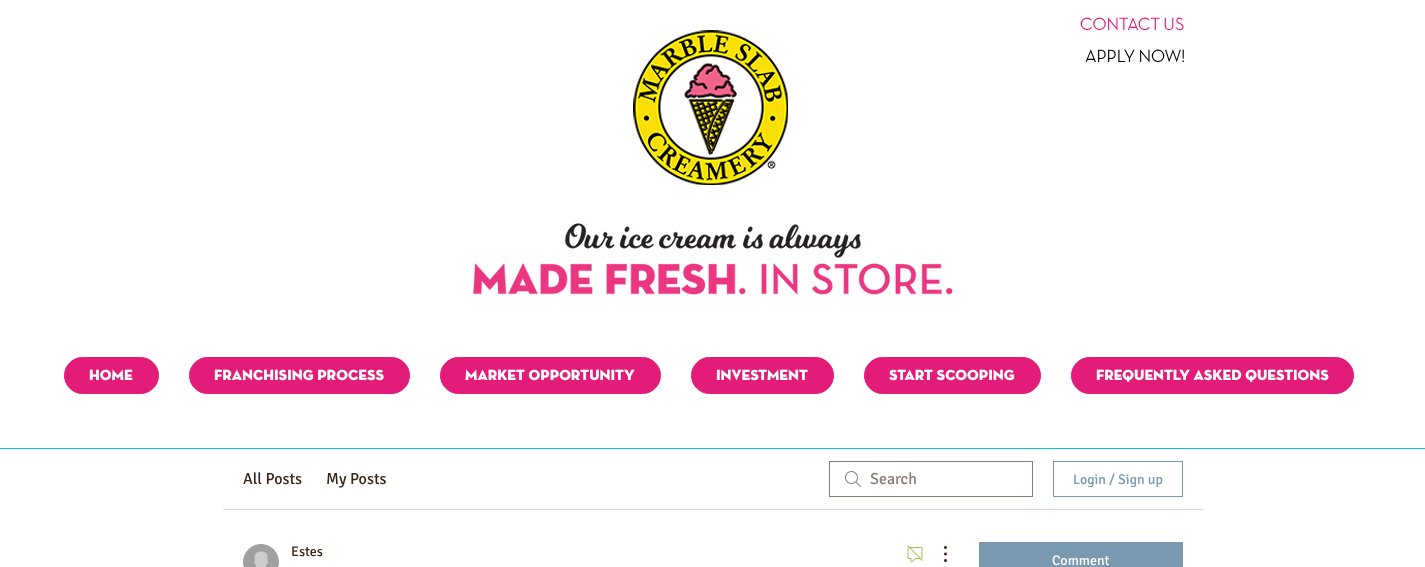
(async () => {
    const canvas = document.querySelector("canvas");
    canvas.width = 1425;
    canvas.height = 567;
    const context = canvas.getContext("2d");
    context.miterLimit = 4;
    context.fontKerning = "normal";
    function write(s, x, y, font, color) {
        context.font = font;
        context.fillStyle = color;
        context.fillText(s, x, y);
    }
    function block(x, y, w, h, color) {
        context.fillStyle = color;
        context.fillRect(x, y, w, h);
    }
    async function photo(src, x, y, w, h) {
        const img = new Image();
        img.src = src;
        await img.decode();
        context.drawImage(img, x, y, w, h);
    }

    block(0, 0, 1425, 567, "rgb(255, 255, 255)");
    write("CONTACT US", 1080, 30, "500 18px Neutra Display", "rgb(227, 28, 121)");
    await photo("media/1.png", 633, 30, 155, 155);
    write("APPLY NOW!", 1085, 62, "500 18px Neutra Display", "rgb(0, 0, 0)");
    await photo("media/2.png", 473, 223, 480, 72);
    context.fillStyle = "rgb(227, 28, 121)";
    context.beginPath();
    context.roundRect(64.5, 357.5, 94, 36, 18);
    context.fill();
    context.strokeStyle = "rgb(227, 28, 121)";
    context.stroke();
    write("HOME", 89, 380, "15px Neutra Display", "rgb(255, 255, 255)");
    context.fillStyle = "rgb(227, 28, 121)";
    context.beginPath();
    context.roundRect(189.5, 357.5, 220, 36, 18);
    context.fill();
    context.stroke();
    write("FRANCHISING PROCESS", 214, 380, "15px Neutra Display", "rgb(255, 255, 255)");
    context.fillStyle = "rgb(227, 28, 121)";
    context.beginPath();
    context.roundRect(440.5, 357.5, 220, 36, 18);
    context.fill();
    context.stroke();
    write("MARKET OPPORTUNITY", 465, 380, "15px Neutra Display", "rgb(255, 255, 255)");
    context.fillStyle = "rgb(227, 28, 121)";
    context.beginPath();
    context.roundRect(691.5, 357.5, 142, 36, 18);
    context.fill();
    context.stroke();
    write("INVESTMENT", 716, 380, "15px Neutra Display", "rgb(255, 255, 255)");
    context.fillStyle = "rgb(227, 28, 121)";
    context.beginPath();
    context.roundRect(864.5, 357.5, 176, 36, 18);
    context.fill();
    context.stroke();
    write("START SCOOPING", 889, 380, "15px Neutra Display", "rgb(255, 255, 255)");
    context.fillStyle = "rgb(227, 28, 121)";
    context.beginPath();
    context.roundRect(1071.5, 357.5, 282, 36, 18);
    context.fill();
    context.stroke();
    write("FREQUENTLY ASKED QUESTIONS", 1096, 380, "15px Neutra Display", "rgb(255, 255, 255)");
    block(0, 448, 1425, 1, "rgb(0, 196, 220)");
    block(223, 509, 980, 1, "rgb(216, 211, 208)");
    write("All Posts", 243, 484, "16px Signika", "rgb(58, 35, 21)");
    write("My Posts", 326, 484, "16px Signika", "rgb(58, 35, 21)");
    await photo("media/3.png", 845, 471, 16, 16);
    context.strokeStyle = "rgb(137, 123, 115)";
    context.strokeRect(829.5, 461.5, 203, 35);
    write("Search", 870, 484, "16px Signika", "rgb(137, 123, 115)");
    context.strokeStyle = "rgb(120, 153, 176)";
    context.strokeRect(1053.5, 461.5, 129, 35);
    write("Login / Sign up", 1073, 484, "14px Signika", "rgb(120, 153, 176)");
    await photo("media/4.png", 243, 544, 36, 23);
    write("Estes", 291, 556, "14px Signika", "rgb(58, 35, 21)");
    await photo("media/5.png", 907, 545, 16, 18);
    await photo("media/6.png", 944, 546, 3, 16);
    block(979, 542, 204, 25, "rgb(120, 153, 176)");
    write("Comment", 1052, 565, "14px Signika", "rgb(255, 255, 255)");
})();
